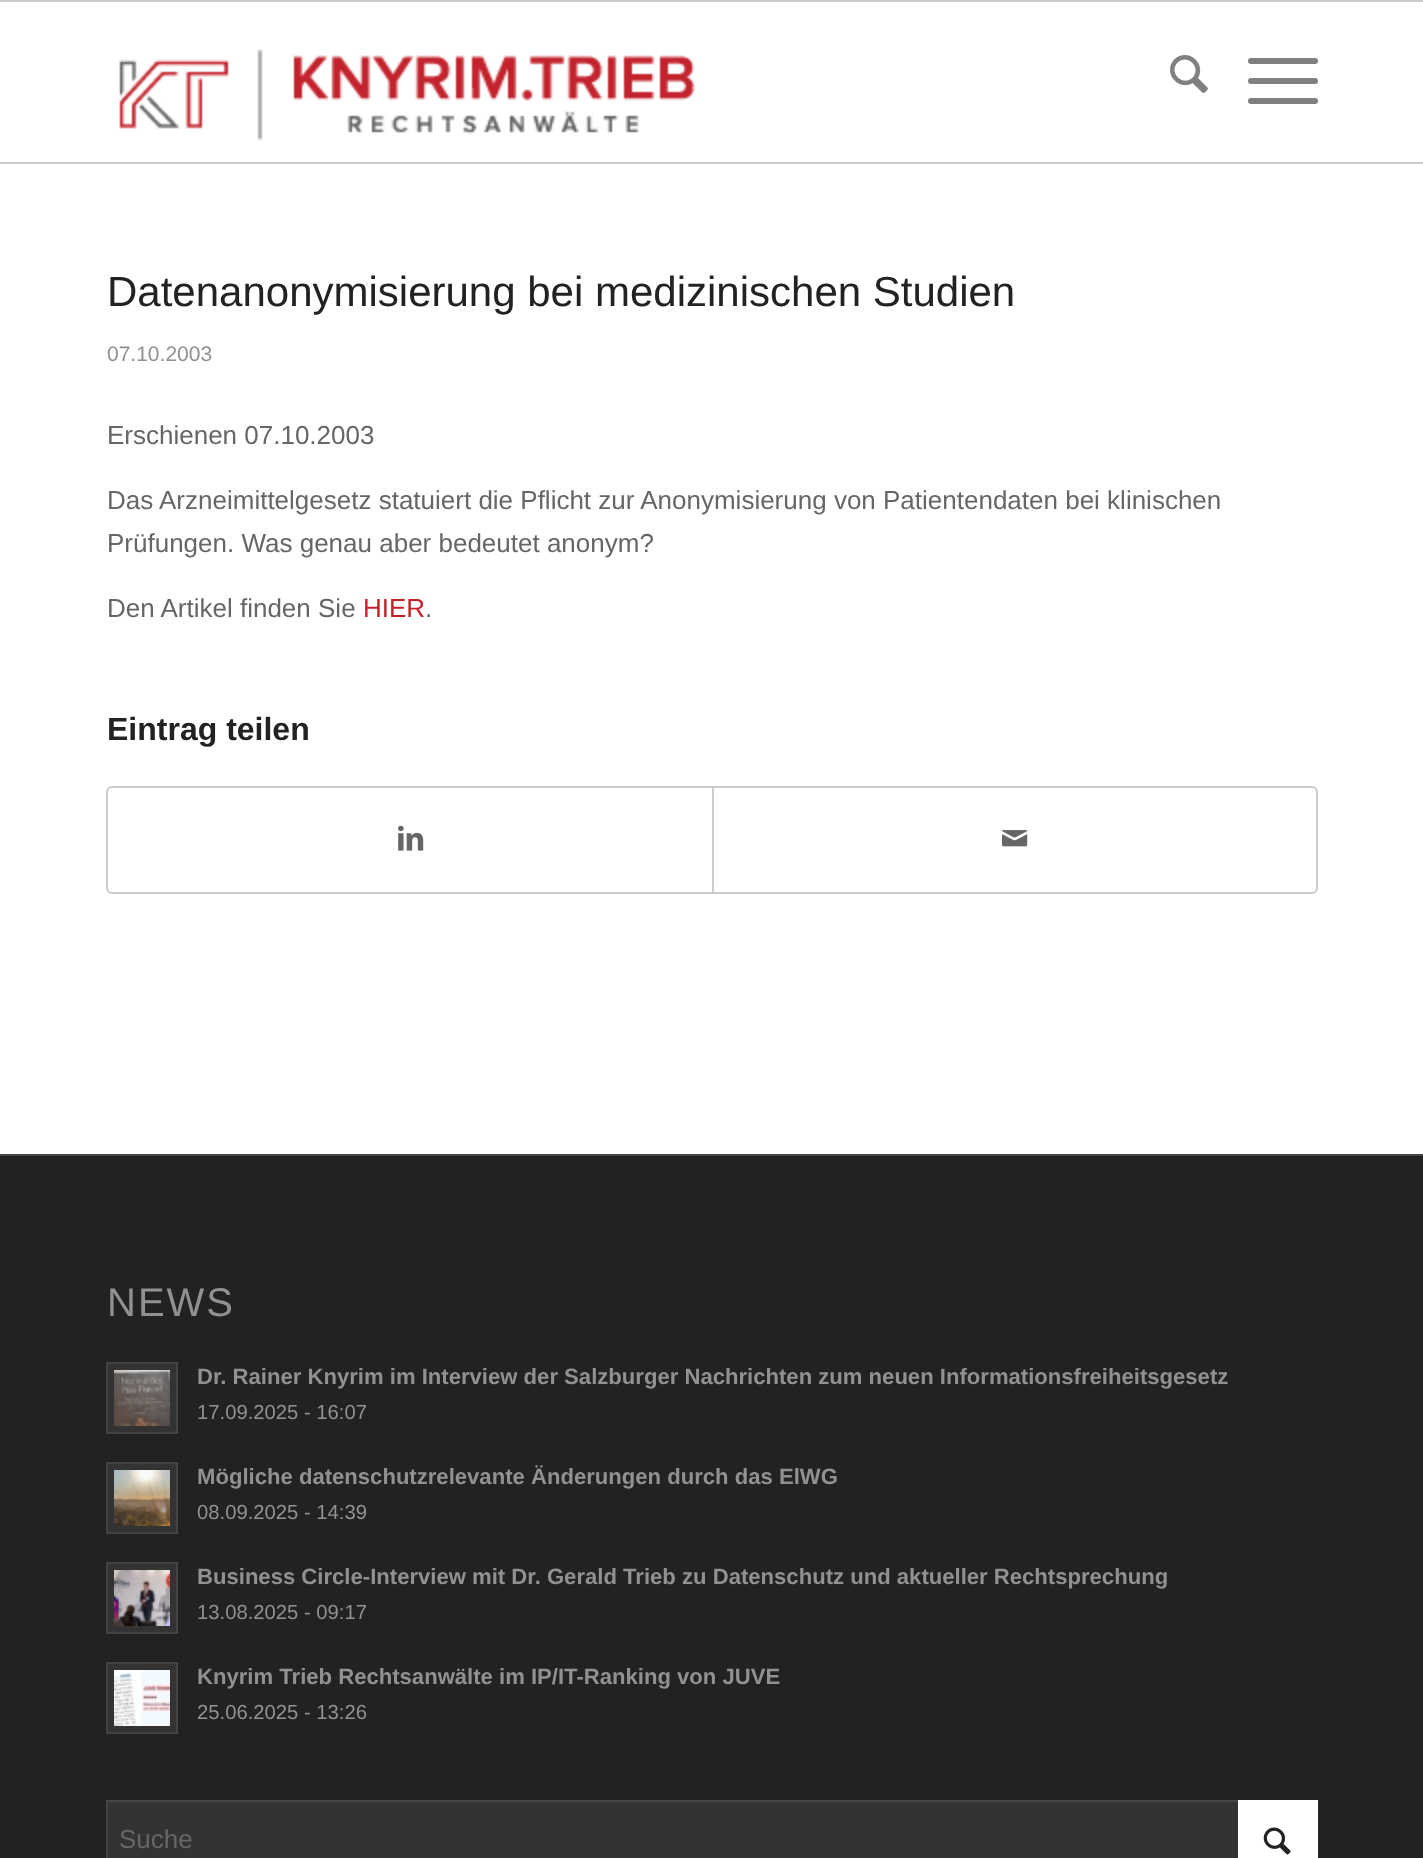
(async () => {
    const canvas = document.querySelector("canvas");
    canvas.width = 1423;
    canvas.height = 1858;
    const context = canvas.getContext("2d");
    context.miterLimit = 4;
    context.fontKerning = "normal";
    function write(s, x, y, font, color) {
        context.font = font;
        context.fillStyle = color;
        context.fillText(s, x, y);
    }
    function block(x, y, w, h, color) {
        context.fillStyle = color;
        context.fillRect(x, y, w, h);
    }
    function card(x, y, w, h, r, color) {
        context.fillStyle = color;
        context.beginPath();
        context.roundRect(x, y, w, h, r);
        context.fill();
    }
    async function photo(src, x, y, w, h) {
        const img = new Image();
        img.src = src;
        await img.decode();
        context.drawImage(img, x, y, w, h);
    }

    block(0, 0, 1423, 1858, "rgb(255, 255, 255)");
    block(0, 0, 1423, 2, "rgb(204, 204, 204)");
    block(0, 162, 1423, 2, "rgb(204, 204, 204)");
    await photo("media/1.png", 119, 49, 576, 92);
    await photo("media/2.png", 1170, 55, 38, 38);
    card(1248, 78, 70, 6, 3, "rgb(128, 128, 128)");
    card(1248, 58, 70, 6, 3, "rgb(128, 128, 128)");
    card(1248, 98, 70, 6, 3, "rgb(128, 128, 128)");
    write("Datenanonymisierung bei medizinischen Studien", 107, 306, "42px Liberation Sans", "rgb(34, 34, 34)");
    write("07.10.2003", 107, 361, "21px Liberation Sans", "rgb(145, 145, 145)");
    write("Erschienen 07.10.2003", 107, 444, "26px Liberation Sans", "rgb(102, 102, 102)");
    write("Das Arzneimittelgesetz statuiert die Pflicht zur Anonymisierung von Patientendaten bei klinischen", 107, 509, "26px Liberation Sans", "rgb(102, 102, 102)");
    write("Prüfungen. Was genau aber bedeutet anonym?", 107, 552, "26px Liberation Sans", "rgb(102, 102, 102)");
    write("Den Artikel finden Sie", 107, 617, "26px Liberation Sans", "rgb(102, 102, 102)");
    write("HIER", 363, 617, "26px Liberation Sans", "rgb(194, 35, 43)");
    write(".", 425, 617, "26px Liberation Sans", "rgb(102, 102, 102)");
    write("Eintrag teilen", 107, 740, "bold 32px Liberation Sans", "rgb(34, 34, 34)");
    context.beginPath();
    context.roundRect(107, 787, 1210, 106, 5);
    context.strokeStyle = "rgb(204, 204, 204)";
    context.lineWidth = 2;
    context.stroke();
    await photo("media/3.png", 398, 825, 26, 26);
    block(712, 788, 2, 104, "rgb(204, 204, 204)");
    await photo("media/4.png", 1002, 830, 26, 17);
    block(0, 1156, 1423, 702, "rgb(34, 34, 34)");
    block(0, 1154, 1423, 2, "rgb(68, 68, 68)");
    context.letterSpacing = "2px";
    write("NEWS", 107, 1316, "40px Liberation Sans", "rgb(145, 145, 145)");
    context.fillStyle = "rgb(51, 51, 51)";
    context.beginPath();
    context.rect(107, 1363, 70, 70);
    context.fill();
    context.strokeStyle = "rgb(68, 68, 68)";
    context.stroke();
    await photo("media/5.png", 114, 1370, 56, 56);
    context.letterSpacing = "0px";
    write("Dr. Rainer Knyrim im Interview der Salzburger Nachrichten zum neuen Informationsfreiheitsgesetz", 197, 1384, "bold 22.1px Liberation Sans", "rgb(145, 145, 145)");
    write("17.09.2025 - 16:07", 197, 1419, "20.25px Liberation Sans", "rgb(145, 145, 145)");
    context.fillStyle = "rgb(51, 51, 51)";
    context.beginPath();
    context.rect(107, 1463, 70, 70);
    context.fill();
    context.stroke();
    await photo("media/6.png", 114, 1470, 56, 56);
    write("Mögliche datenschutzrelevante Änderungen durch das ElWG", 197, 1484, "bold 22.1px Liberation Sans", "rgb(145, 145, 145)");
    write("08.09.2025 - 14:39", 197, 1519, "20.25px Liberation Sans", "rgb(145, 145, 145)");
    context.fillStyle = "rgb(51, 51, 51)";
    context.beginPath();
    context.rect(107, 1563, 70, 70);
    context.fill();
    context.stroke();
    await photo("media/7.png", 114, 1570, 56, 56);
    write("Business Circle-Interview mit Dr. Gerald Trieb zu Datenschutz und aktueller Rechtsprechung", 197, 1584, "bold 22.1px Liberation Sans", "rgb(145, 145, 145)");
    write("13.08.2025 - 09:17", 197, 1619, "20.25px Liberation Sans", "rgb(145, 145, 145)");
    context.fillStyle = "rgb(51, 51, 51)";
    context.beginPath();
    context.rect(107, 1663, 70, 70);
    context.fill();
    context.stroke();
    await photo("media/8.png", 114, 1670, 56, 56);
    write("Knyrim Trieb Rechtsanwälte im IP/IT-Ranking von JUVE", 197, 1684, "bold 22.1px Liberation Sans", "rgb(145, 145, 145)");
    write("25.06.2025 - 13:26", 197, 1719, "20.25px Liberation Sans", "rgb(145, 145, 145)");
    block(108, 1802, 1130, 56, "rgb(51, 51, 51)");
    context.strokeRect(107, 1801, 1210, 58);
    block(1238, 1800, 80, 58, "rgb(255, 255, 255)");
    write("Suche", 119, 1848, "26px Liberation Sans", "rgb(102, 102, 102)");
    await photo("media/9.png", 1263, 1827, 28, 28);
})();
